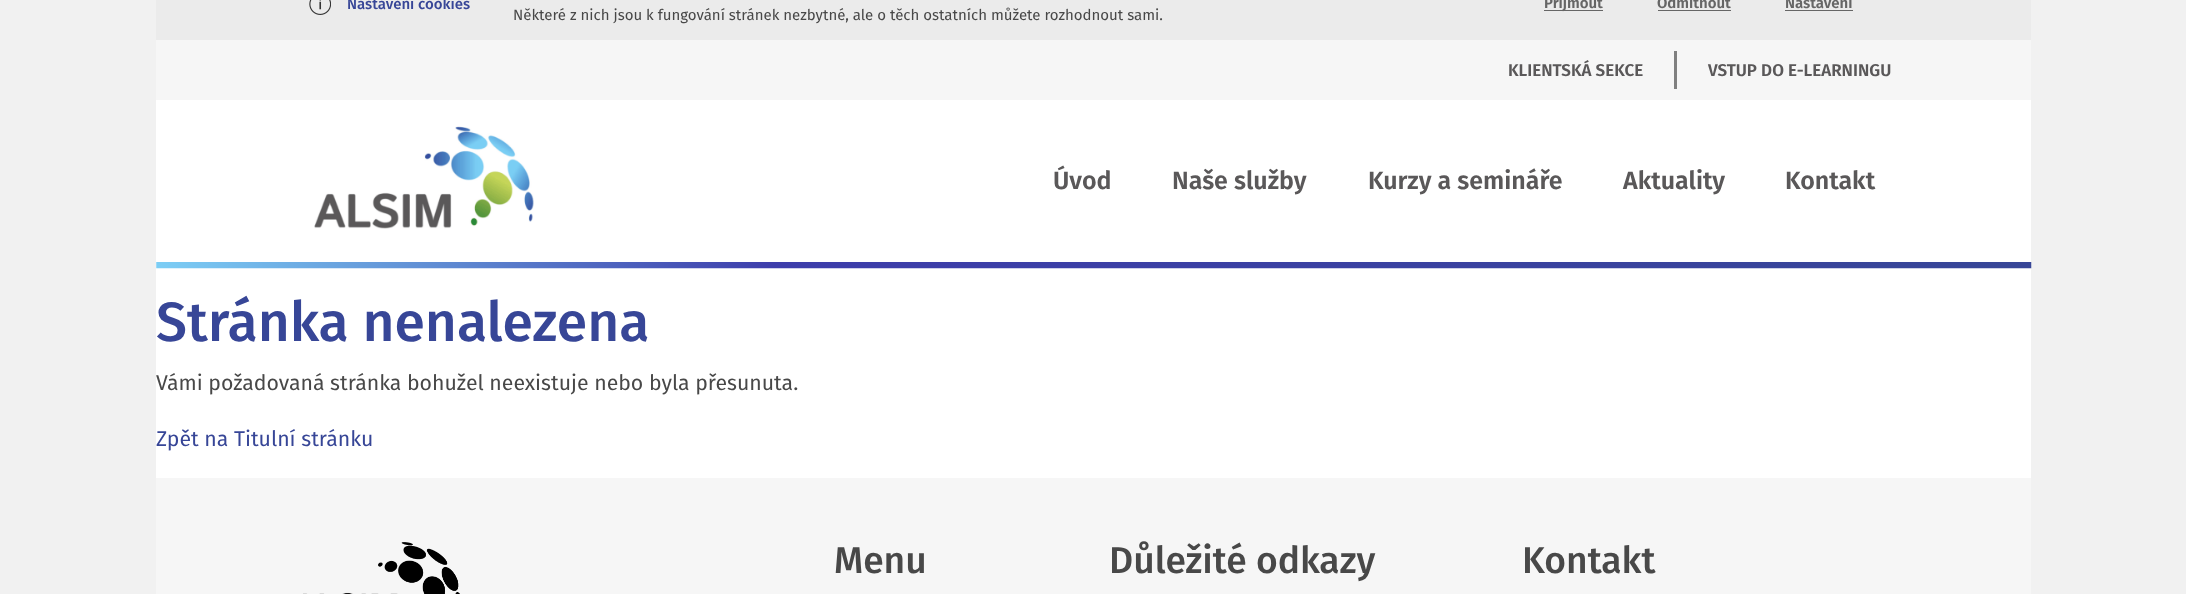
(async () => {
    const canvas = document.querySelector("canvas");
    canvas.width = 2186;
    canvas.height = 594;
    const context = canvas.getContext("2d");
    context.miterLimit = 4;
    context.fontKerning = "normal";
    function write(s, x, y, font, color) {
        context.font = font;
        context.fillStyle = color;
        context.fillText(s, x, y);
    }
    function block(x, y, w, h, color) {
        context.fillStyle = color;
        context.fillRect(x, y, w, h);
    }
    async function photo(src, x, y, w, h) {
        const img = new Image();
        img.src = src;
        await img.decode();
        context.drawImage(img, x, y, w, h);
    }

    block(0, 0, 2186, 594, "rgb(241, 241, 241)");
    block(156, 100, 1875, 378, "rgb(255, 255, 255)");
    block(156, 0, 1875, 40, "rgb(235, 235, 235)");
    await photo("media/1.png", 309, 0, 22, 15);
    write("Nastavení cookies", 347, 9, "500 15px Fira Sans", "rgb(55, 70, 151)");
    write("Některé z nich jsou k fungování stránek nezbytné, ale o těch ostatních můžete rozhodnout sami.", 513, 20, "15px Fira Sans", "rgb(72, 72, 72)");
    block(1544, 10, 59, 1, "rgb(102, 102, 102)");
    write("Přijmout", 1544, 8, "600 15px Fira Sans", "rgb(102, 102, 102)");
    write("Odmítnout", 1657, 8, "600 15px Fira Sans", "rgb(102, 102, 102)");
    block(1658, 10, 73, 1, "rgb(102, 102, 102)");
    write("Nastavení", 1785, 8, "600 15px Fira Sans", "rgb(102, 102, 102)");
    block(1785, 10, 68, 1, "rgb(102, 102, 102)");
    block(156, 40, 1875, 60, "rgb(246, 246, 246)");
    block(1674, 51, 3, 38, "rgb(128, 128, 128)");
    write("KLIENTSKÁ SEKCE", 1508, 76, "600 17px Fira Sans", "rgb(90, 88, 89)");
    write("VSTUP DO E-LEARNINGU", 1708, 76, "600 17px Fira Sans", "rgb(90, 88, 89)");
    await photo("media/2.png", 156, 262, 1876, 7);
    await photo("media/3.png", 314, 126, 220, 103);
    write("Úvod", 1053, 189, "600 25px Fira Sans", "rgb(90, 88, 89)");
    write("Naše služby", 1172, 189, "600 25px Fira Sans", "rgb(90, 88, 89)");
    write("Kurzy a semináře", 1368, 189, "600 25px Fira Sans", "rgb(90, 88, 89)");
    write("Aktuality", 1623, 189, "600 25px Fira Sans", "rgb(90, 88, 89)");
    write("Kontakt", 1785, 189, "600 25px Fira Sans", "rgb(90, 88, 89)");
    write("Stránka nenalezena", 156, 341, "500 55.25px Fira Sans", "rgb(55, 70, 151)");
    write("Vámi požadovaná stránka bohužel neexistuje nebo byla přesunuta.", 156, 390, "21.25px Fira Sans", "rgb(72, 72, 72)");
    write("Zpět na Titulní stránku", 156, 446, "21.25px Fira Sans", "rgb(55, 70, 151)");
    block(156, 478, 1875, 116, "rgb(246, 246, 246)");
    await photo("media/4.png", 303, 542, 157, 52);
    write("Menu", 834, 573, "500 37.25px Fira Sans", "rgb(72, 72, 72)");
    write("Důležité odkazy", 1109, 573, "500 37.25px Fira Sans", "rgb(72, 72, 72)");
    write("Kontakt", 1522, 573, "500 37.25px Fira Sans", "rgb(72, 72, 72)");
})();
